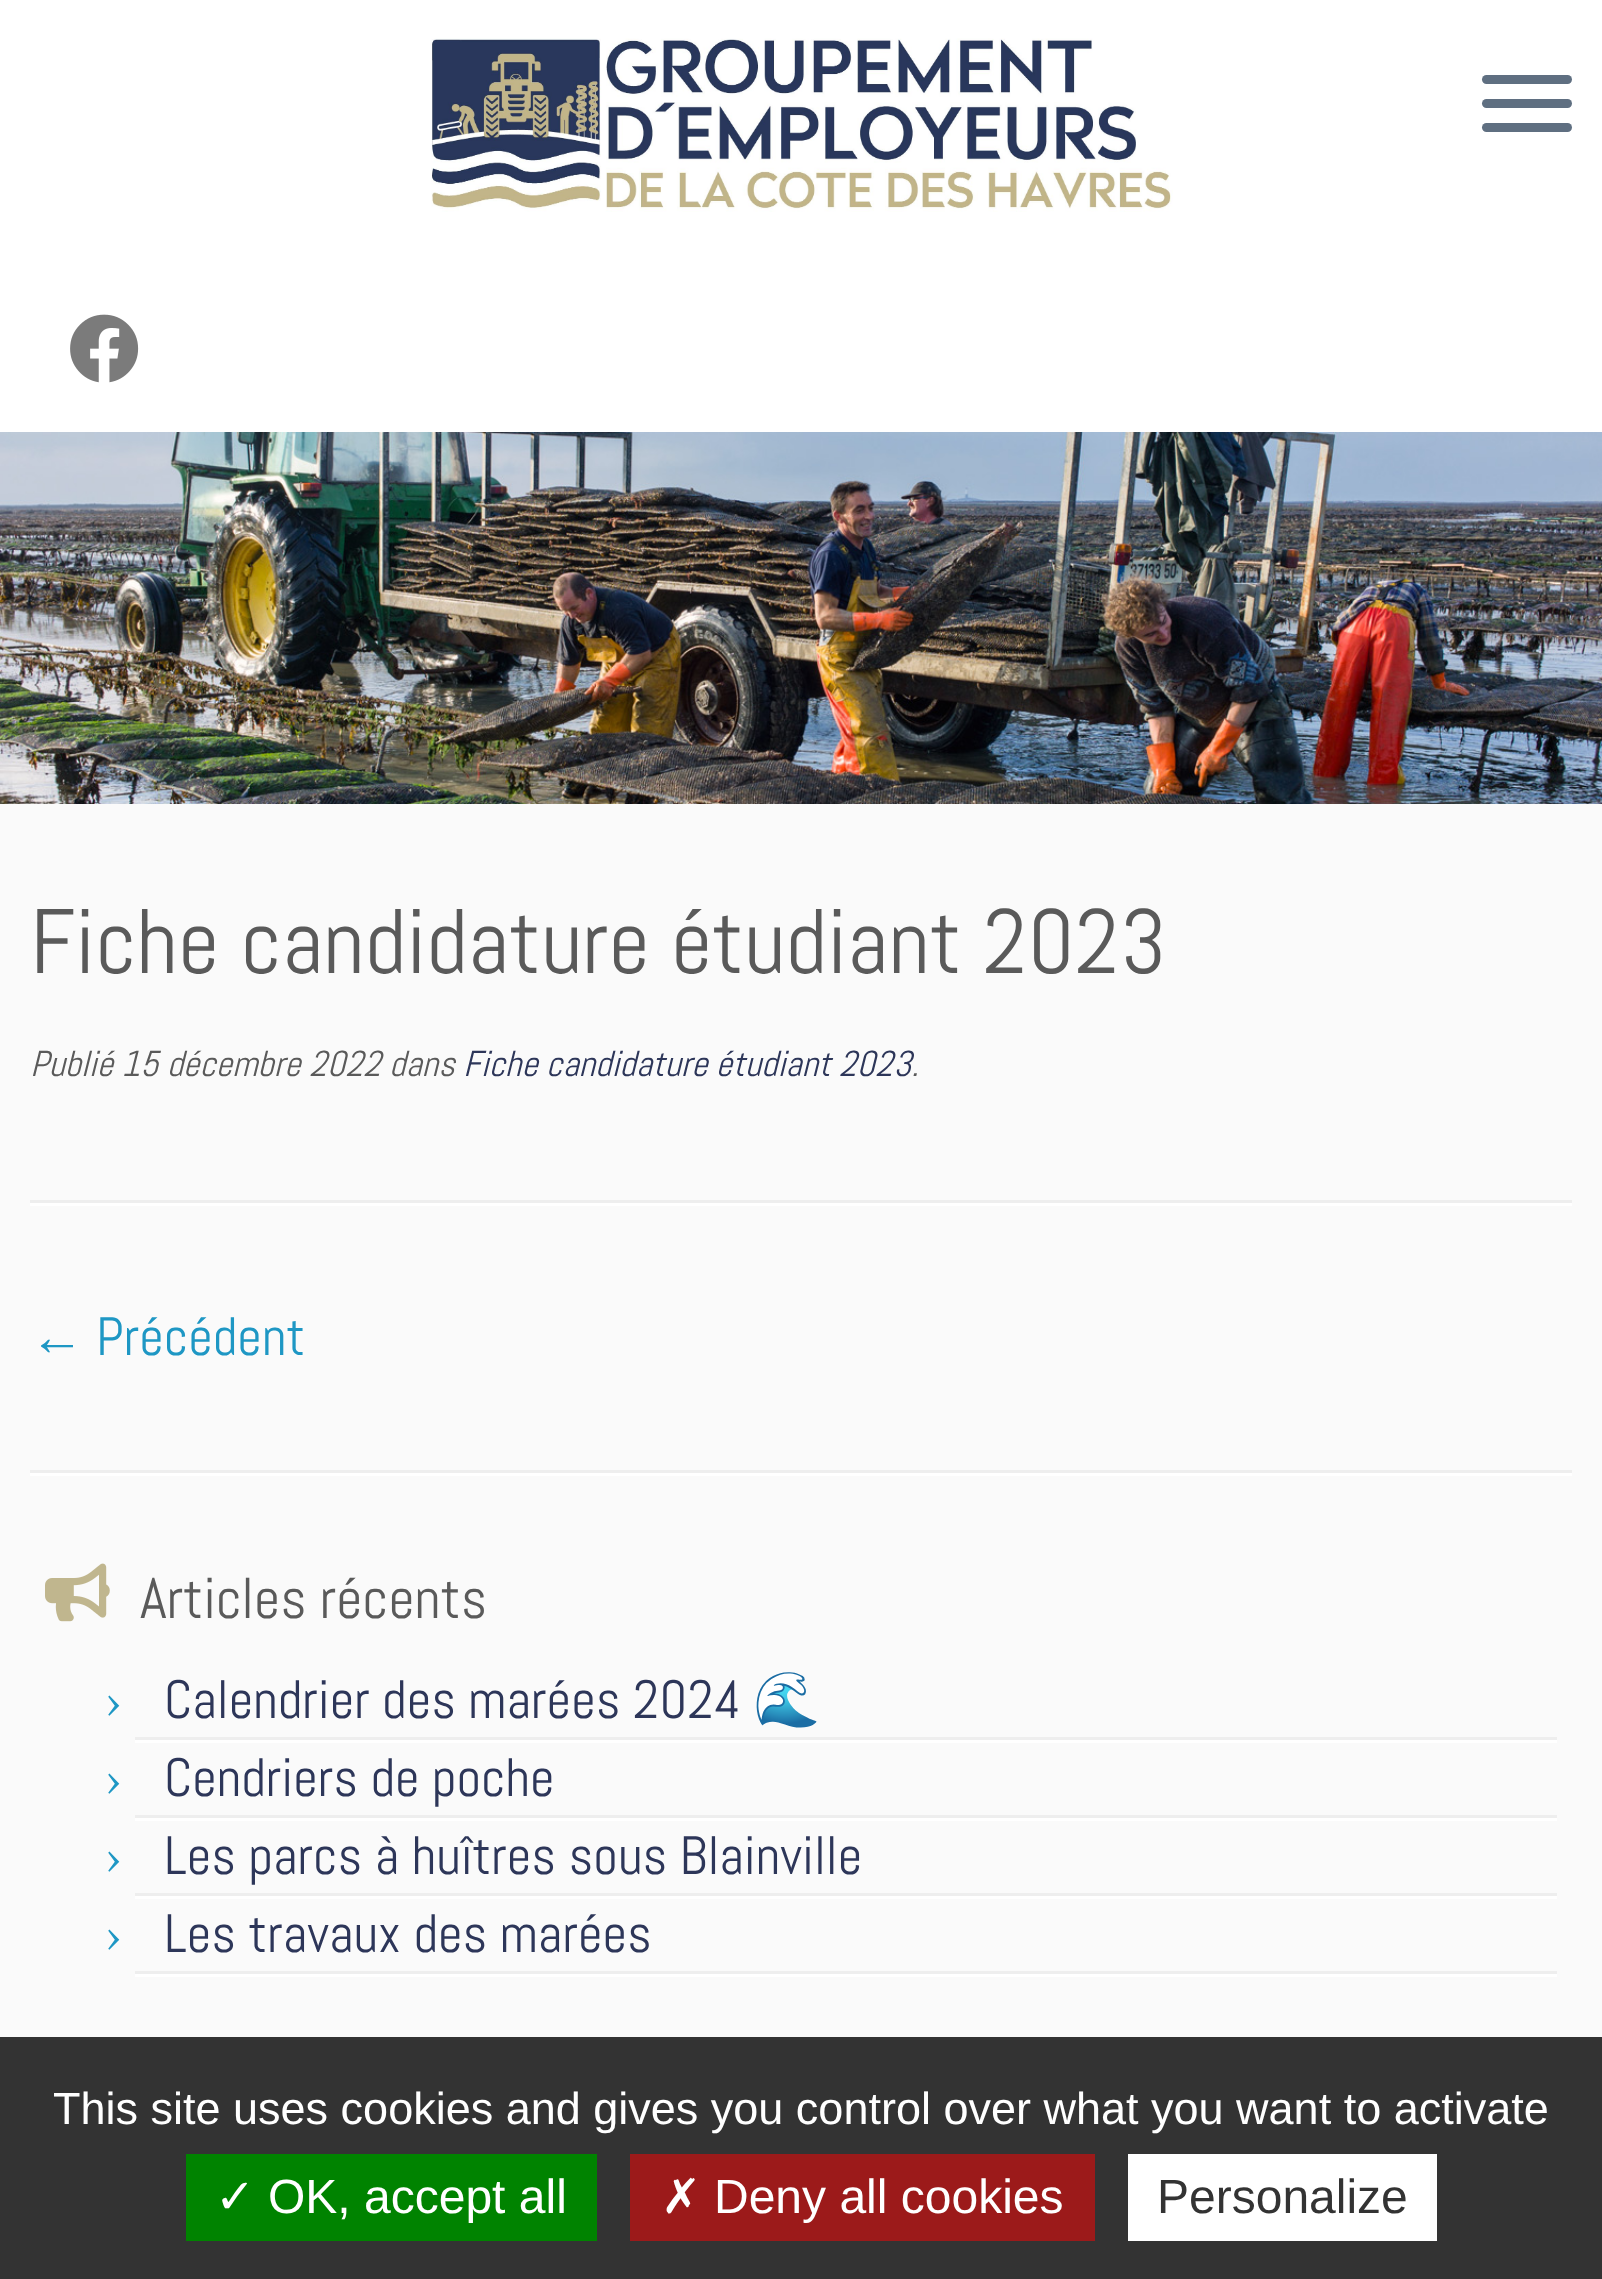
(async () => {
    const canvas = document.querySelector("canvas");
    canvas.width = 1602;
    canvas.height = 2279;
    const context = canvas.getContext("2d");
    context.miterLimit = 4;
    context.fontKerning = "normal";
    function write(s, x, y, font, color) {
        context.font = font;
        context.fillStyle = color;
        context.fillText(s, x, y);
    }
    function block(x, y, w, h, color) {
        context.fillStyle = color;
        context.fillRect(x, y, w, h);
    }
    function card(x, y, w, h, r, color) {
        context.fillStyle = color;
        context.beginPath();
        context.roundRect(x, y, w, h, r);
        context.fill();
    }
    async function photo(src, x, y, w, h) {
        const img = new Image();
        img.src = src;
        await img.decode();
        context.drawImage(img, x, y, w, h);
    }

    block(0, 0, 1602, 2279, "rgb(250, 250, 250)");
    block(0, 0, 1602, 432, "rgb(255, 255, 255)");
    await photo("media/1.png", 431, 38, 742, 174);
    card(1482, 75, 90, 9, 4.5, "rgb(95, 111, 129)");
    card(1482, 99, 90, 9, 4.5, "rgb(95, 111, 129)");
    card(1482, 123, 90, 9, 4.5, "rgb(95, 111, 129)");
    await photo("media/2.png", 70, 314, 69, 69);
    await photo("media/3.png", 0, 432, 1602, 372);
    write("Fiche candidature étudiant 2023", 30, 973, "91.25px Abel", "rgb(90, 90, 90)");
    write("Publié 15 décembre 2022 dans", 30, 1076, "italic 36px Abel", "rgb(90, 90, 90)");
    write("Fiche candidature étudiant 2023", 463, 1076, "italic 36px Abel", "rgb(45, 54, 89)");
    write(".", 911, 1076, "italic 36px Abel", "rgb(90, 90, 90)");
    block(30, 1200, 1542, 3, "rgb(238, 238, 238)");
    block(30, 1203, 1542, 3, "rgb(255, 255, 255)");
    write("←", 30, 1355, "54px Liberation Serif", "rgb(30, 151, 196)");
    write("Précédent", 96, 1355, "54px Abel", "rgb(30, 151, 196)");
    block(30, 1470, 1542, 3, "rgb(238, 238, 238)");
    block(30, 1473, 1542, 3, "rgb(255, 255, 255)");
    await photo("media/4.png", 45, 1563, 65, 59);
    write("Articles récents", 140, 1618, "57.5px Abel", "rgb(90, 90, 90)");
    block(135, 1737, 1422, 3, "rgb(238, 238, 238)");
    write("›", 105, 1718, "54px Abel", "rgb(30, 151, 196)");
    write("Calendrier des marées 2024", 164, 1718, "54px Abel", "rgb(45, 54, 89)");
    write("🌊", 753, 1718, "54px Noto Color Emoji", "rgb(45, 54, 89)");
    block(135, 1740, 1422, 3, "rgb(255, 255, 255)");
    block(135, 1815, 1422, 3, "rgb(238, 238, 238)");
    write("›", 105, 1796, "54px Abel", "rgb(30, 151, 196)");
    write("Cendriers de poche", 164, 1796, "54px Abel", "rgb(45, 54, 89)");
    block(135, 1818, 1422, 3, "rgb(255, 255, 255)");
    block(135, 1893, 1422, 3, "rgb(238, 238, 238)");
    write("›", 105, 1874, "54px Abel", "rgb(30, 151, 196)");
    write("Les parcs à huîtres sous Blainville", 164, 1874, "54px Abel", "rgb(45, 54, 89)");
    block(135, 1896, 1422, 3, "rgb(255, 255, 255)");
    block(135, 1971, 1422, 3, "rgb(238, 238, 238)");
    write("›", 105, 1952, "54px Abel", "rgb(30, 151, 196)");
    write("Les travaux des marées", 164, 1952, "54px Abel", "rgb(45, 54, 89)");
    block(135, 1974, 1422, 3, "rgb(255, 255, 255)");
    block(0, 2037, 1602, 242, "rgb(51, 51, 51)");
    write("This site uses cookies and gives you control over what you want to activate", 53, 2124, "45px Liberation Sans", "rgb(255, 255, 255)");
    block(186, 2154, 411, 87, "rgb(0, 131, 0)");
    write("✓", 215, 2213, "48px DejaVu Sans", "rgb(255, 255, 255)");
    write("OK, accept all", 268, 2213, "48px Liberation Sans", "rgb(255, 255, 255)");
    block(630, 2154, 465, 87, "rgb(156, 26, 26)");
    write("✗", 661, 2213, "48px DejaVu Sans", "rgb(255, 255, 255)");
    write("Deny all cookies", 714, 2213, "48px Liberation Sans", "rgb(255, 255, 255)");
    block(1128, 2154, 309, 87, "rgb(255, 255, 255)");
    write("Personalize", 1157, 2213, "48px Liberation Sans", "rgb(51, 51, 51)");
})();
